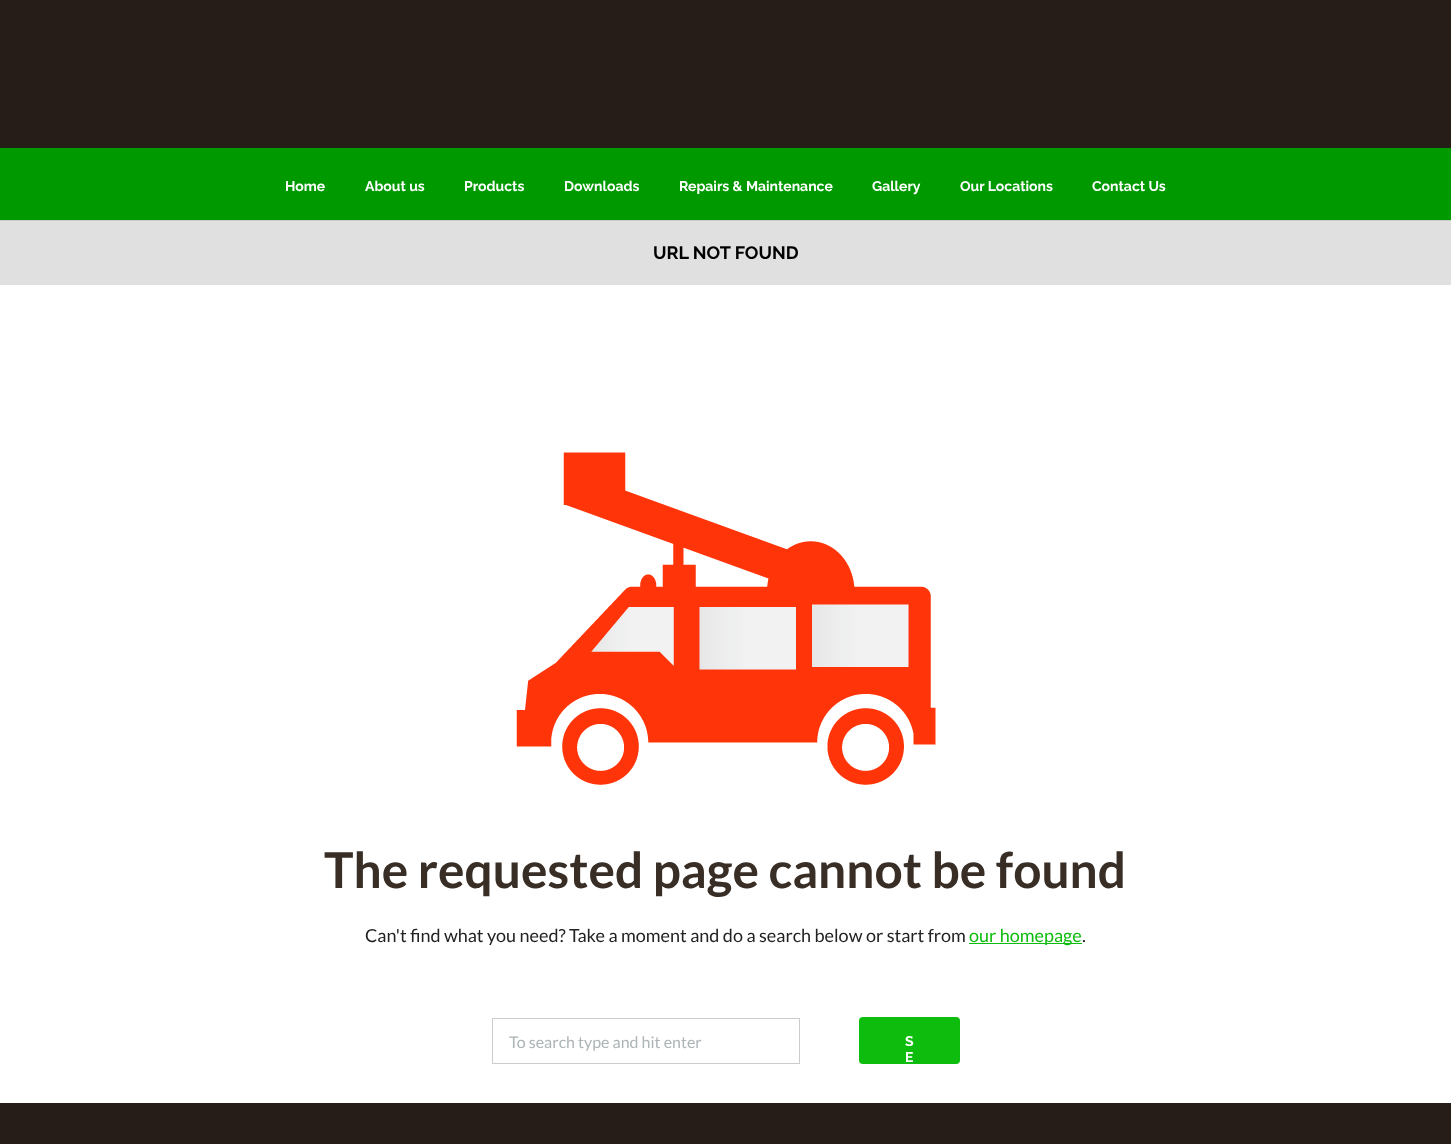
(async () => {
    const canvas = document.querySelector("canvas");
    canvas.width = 1451;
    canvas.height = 1144;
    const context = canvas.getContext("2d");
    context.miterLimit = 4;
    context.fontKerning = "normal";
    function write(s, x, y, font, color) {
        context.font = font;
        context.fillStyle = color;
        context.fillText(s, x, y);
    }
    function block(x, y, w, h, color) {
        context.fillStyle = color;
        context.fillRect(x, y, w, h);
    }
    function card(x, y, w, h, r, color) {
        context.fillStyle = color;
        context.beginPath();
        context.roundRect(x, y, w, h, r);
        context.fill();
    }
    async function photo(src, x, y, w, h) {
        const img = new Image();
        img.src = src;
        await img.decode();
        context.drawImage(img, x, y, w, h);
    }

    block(0, 0, 1451, 1144, "rgb(255, 255, 255)");
    block(0, 0, 1451, 148, "rgb(38, 28, 24)");
    block(0, 148, 1451, 72, "rgb(0, 153, 0)");
    write("Home", 285, 191, "bold 14px Raleway", "rgb(255, 255, 255)");
    write("About us", 365, 191, "bold 14px Raleway", "rgb(255, 255, 255)");
    write("Products", 464, 191, "bold 14px Raleway", "rgb(255, 255, 255)");
    write("Downloads", 564, 191, "bold 14px Raleway", "rgb(255, 255, 255)");
    write("Repairs & Maintenance", 679, 191, "bold 14px Raleway", "rgb(255, 255, 255)");
    write("Gallery", 872, 191, "bold 14px Raleway", "rgb(255, 255, 255)");
    write("Our Locations", 960, 191, "bold 14px Raleway", "rgb(255, 255, 255)");
    write("Contact Us", 1092, 191, "bold 14px Raleway", "rgb(255, 255, 255)");
    block(0, 221, 1451, 64, "rgb(224, 224, 224)");
    block(0, 220, 1451, 1, "rgb(202, 202, 202)");
    write("URL NOT FOUND", 653, 259, "bold 18px Raleway", "rgb(0, 0, 0)");
    await photo("media/1.png", 516, 452, 420, 333);
    write("The requested page cannot be found", 324, 888, "bold 49.6px Lato", "rgb(56, 46, 38)");
    write("Can't find what you need? Take a moment and do a search below or start from", 365, 942, "18px Lato", "rgb(34, 34, 34)");
    block(969, 943, 113, 1, "rgb(13, 188, 13)");
    write("our homepage", 969, 942, "18px Lato", "rgb(13, 188, 13)");
    write(".", 1082, 942, "18px Lato", "rgb(34, 34, 34)");
    context.strokeStyle = "rgb(204, 204, 204)";
    context.strokeRect(492.5, 1018.5, 307, 45);
    write("To search type and hit enter", 509, 1048, "16px Lato", "rgb(172, 180, 182)");
    card(859, 1017, 101, 47, 4, "rgb(13, 188, 13)");
    write("S", 905, 1046, "bold 14px Raleway", "rgb(255, 255, 255)");
    write("E", 905, 1062, "bold 14px Raleway", "rgb(255, 255, 255)");
    block(0, 1103, 1451, 41, "rgb(38, 28, 24)");
})();
